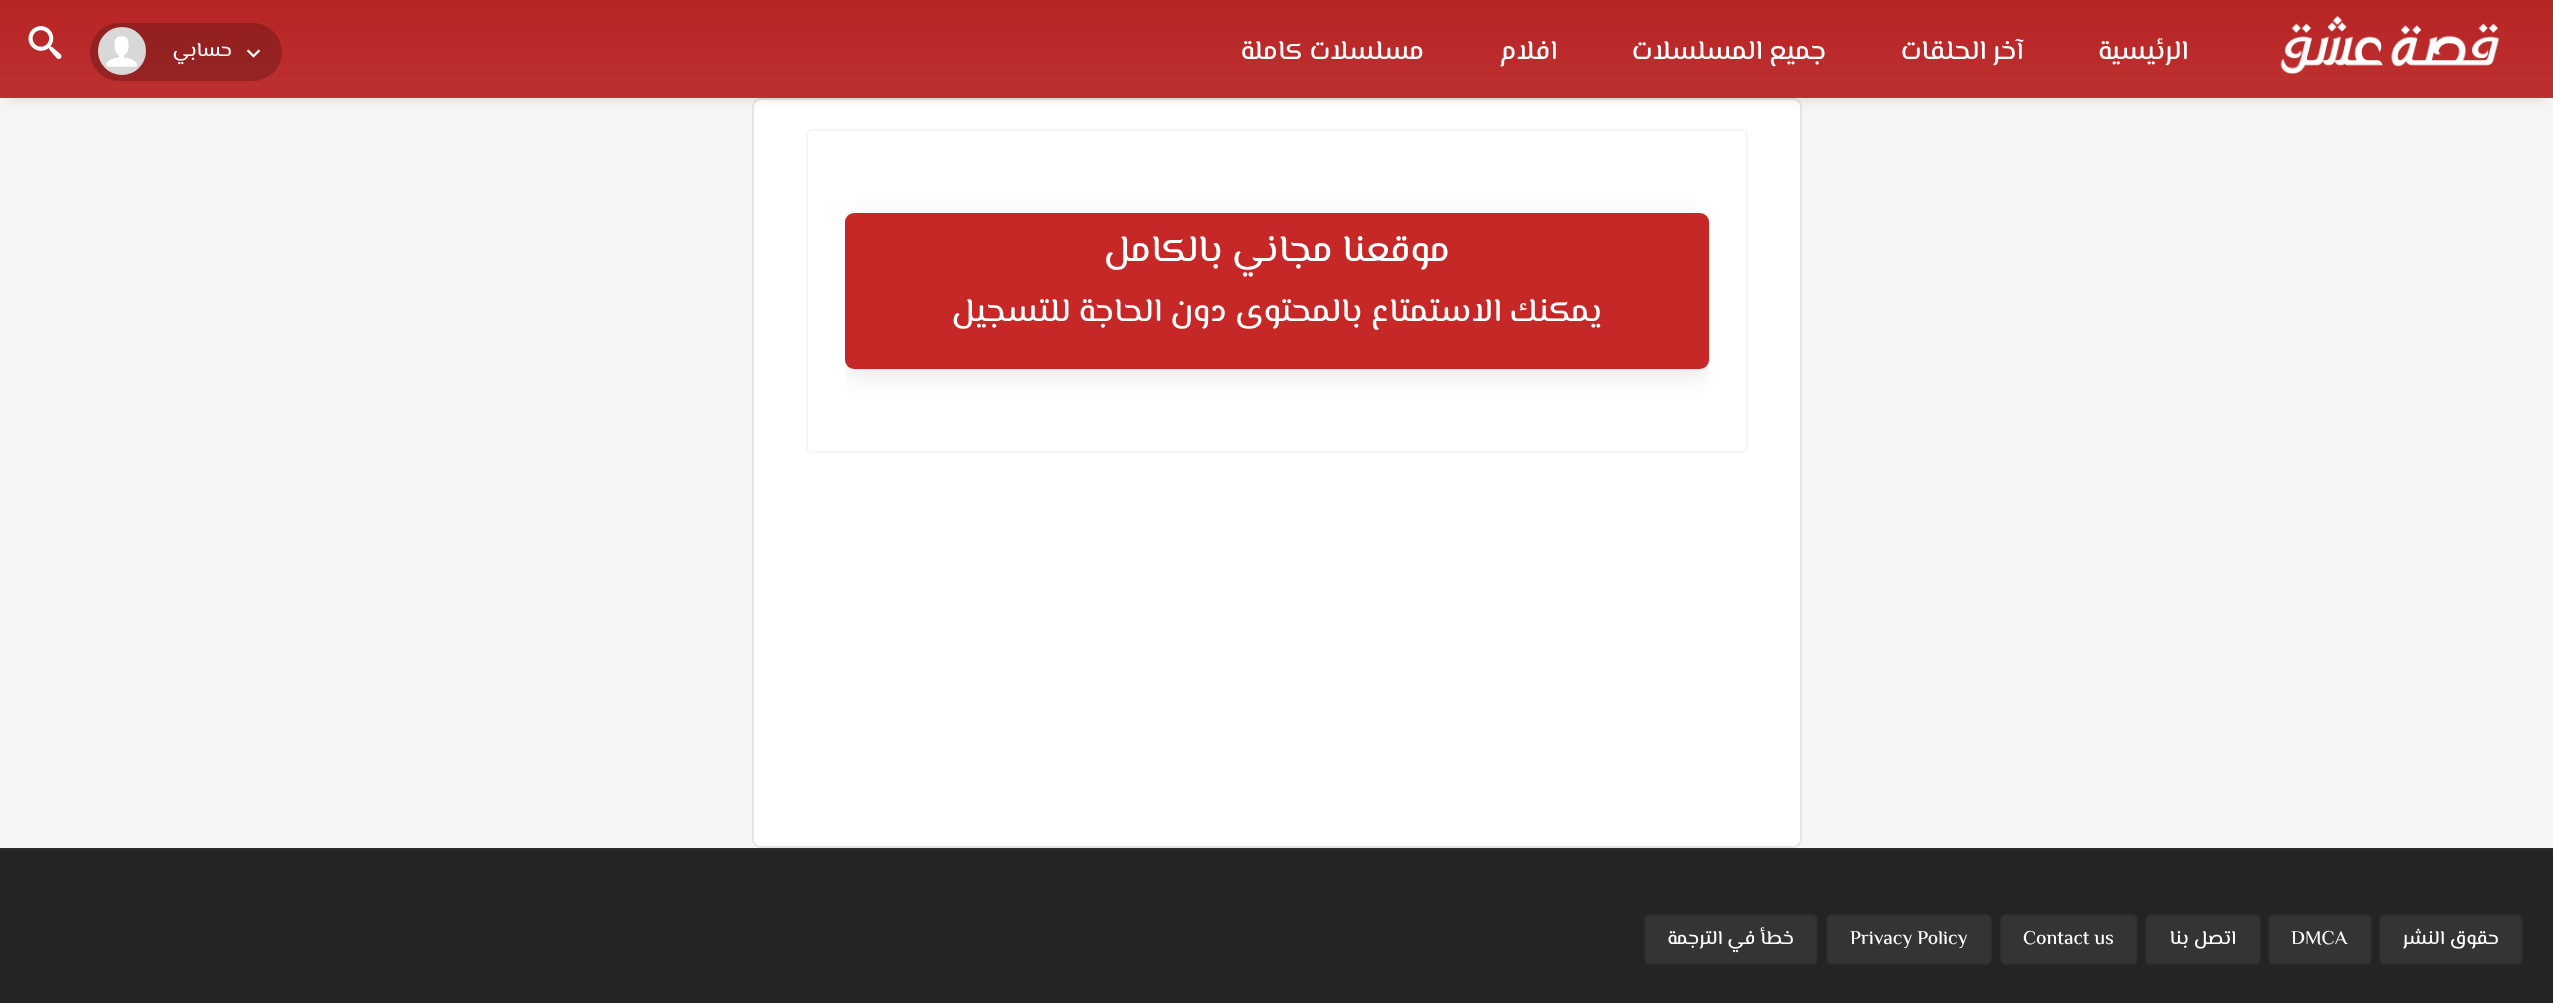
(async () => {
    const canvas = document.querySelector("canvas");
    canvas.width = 2553;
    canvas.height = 1003;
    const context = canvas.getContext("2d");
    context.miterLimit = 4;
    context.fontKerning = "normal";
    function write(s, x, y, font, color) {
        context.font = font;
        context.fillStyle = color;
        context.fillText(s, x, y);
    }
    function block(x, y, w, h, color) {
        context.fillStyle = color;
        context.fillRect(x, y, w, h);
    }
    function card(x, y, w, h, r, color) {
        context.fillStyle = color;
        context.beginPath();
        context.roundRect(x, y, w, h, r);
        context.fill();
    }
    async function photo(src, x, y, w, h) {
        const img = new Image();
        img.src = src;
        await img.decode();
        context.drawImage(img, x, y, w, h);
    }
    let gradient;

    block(0, 0, 2553, 1003, "rgb(245, 245, 245)");
    card(752, 98, 1050, 750, 9, "rgb(255, 255, 255)");
    context.beginPath();
    context.roundRect(753, 99, 1048, 748, 8);
    context.strokeStyle = "rgba(0, 0, 0, 0.1)";
    context.lineWidth = 2;
    context.stroke();
    context.fillStyle = "rgba(0, 0, 0, 0.15)";
    context.filter = "blur(6px)";
    context.beginPath();
    context.rect(9, 18, 2535, 80);
    context.fill();
    context.filter = "none";
    gradient = context.createLinearGradient(1277, 0, 1277, 98);
    gradient.addColorStop(0, "rgb(183, 36, 36)");
    gradient.addColorStop(1, "rgb(190, 48, 48)");
    context.fillStyle = gradient;
    context.fillRect(0, 0, 2553, 98);
    await photo("media/1.png", 2280, 16, 220, 58);
    context.direction = "rtl";
    write("الرئيسية", 2188, 59, "500 27px El Messiri", "rgb(255, 255, 255)");
    write("آخر الحلقات", 2023, 59, "500 27px El Messiri", "rgb(255, 255, 255)");
    write("جميع المسلسلات", 1826, 59, "500 27px El Messiri", "rgb(255, 255, 255)");
    write("افلام", 1557, 59, "500 27px El Messiri", "rgb(255, 255, 255)");
    write("مسلسلات كاملة", 1424, 59, "500 27px El Messiri", "rgb(255, 255, 255)");
    card(90, 23, 192, 58, 29, "rgba(0, 0, 0, 0.2)");
    await photo("media/2.png", 246, 49, 15, 9);
    write("حسابي", 232, 56, "500 19.5px El Messiri", "rgb(255, 255, 255)");
    context.fillStyle = "rgb(217, 216, 216)";
    context.beginPath();
    context.arc(122, 51, 22.5, 0, Math.PI * 2);
    context.fill();
    context.strokeStyle = "rgb(217, 216, 216)";
    context.lineWidth = 3;
    context.stroke();
    await photo("media/3.png", 106, 36, 32, 31);
    await photo("media/4.png", 28, 26, 34, 33);
    context.beginPath();
    context.roundRect(807, 130, 940, 322, 5);
    context.strokeStyle = "rgb(245, 245, 245)";
    context.lineWidth = 2;
    context.stroke();
    context.save();
    context.beginPath();
    context.rect(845, 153, 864, 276);
    context.clip();
    context.fillStyle = "rgba(0, 0, 0, 0.1)";
    context.filter = "blur(11px)";
    context.beginPath();
    context.roundRect(845, 219, 864, 156, 9);
    context.fill();
    context.filter = "none";
    context.restore();
    card(845, 213, 864, 156, 9, "rgb(198, 40, 40)");
    write("موقعنا مجاني بالكامل", 1450, 261, "500 37.5px El Messiri", "rgb(255, 255, 255)");
    write("يمكنك الاستمتاع بالمحتوى دون الحاجة للتسجيل", 1602, 321, "500 33px El Messiri", "rgb(255, 255, 255)");
    block(0, 848, 2553, 3, "rgb(43, 42, 42)");
    block(0, 851, 2553, 152, "rgb(37, 36, 36)");
    card(2379, 914, 144, 51, 6, "rgba(103, 102, 102, 0.24)");
    context.beginPath();
    context.roundRect(2380, 915, 142, 49, 5);
    context.strokeStyle = "rgba(0, 0, 0, 0.1)";
    context.stroke();
    write("حقوق النشر", 2499, 944, "500 19.5px El Messiri", "rgb(255, 255, 255)");
    card(2268, 914, 104, 51, 6, "rgba(103, 102, 102, 0.24)");
    context.beginPath();
    context.roundRect(2269, 915, 102, 49, 5);
    context.stroke();
    context.direction = "ltr";
    write("DMCA", 2291, 944, "500 19.5px El Messiri", "rgb(255, 255, 255)");
    card(2145, 914, 116, 51, 6, "rgba(103, 102, 102, 0.24)");
    context.beginPath();
    context.roundRect(2146, 915, 114, 49, 5);
    context.stroke();
    context.direction = "rtl";
    write("اتصل بنا", 2236, 944, "500 19.5px El Messiri", "rgb(255, 255, 255)");
    card(2000, 914, 138, 51, 6, "rgba(103, 102, 102, 0.24)");
    context.beginPath();
    context.roundRect(2001, 915, 136, 49, 5);
    context.stroke();
    context.direction = "ltr";
    write("Contact us", 2023, 944, "500 19.5px El Messiri", "rgb(255, 255, 255)");
    card(1826, 914, 166, 51, 6, "rgba(103, 102, 102, 0.24)");
    context.beginPath();
    context.roundRect(1827, 915, 164, 49, 5);
    context.stroke();
    write("Privacy Policy", 1850, 944, "500 19.5px El Messiri", "rgb(255, 255, 255)");
    card(1644, 914, 174, 51, 6, "rgba(103, 102, 102, 0.24)");
    context.beginPath();
    context.roundRect(1645, 915, 172, 49, 5);
    context.stroke();
    context.direction = "rtl";
    write("خطأ في الترجمة", 1794, 944, "500 19.5px El Messiri", "rgb(255, 255, 255)");
})();
